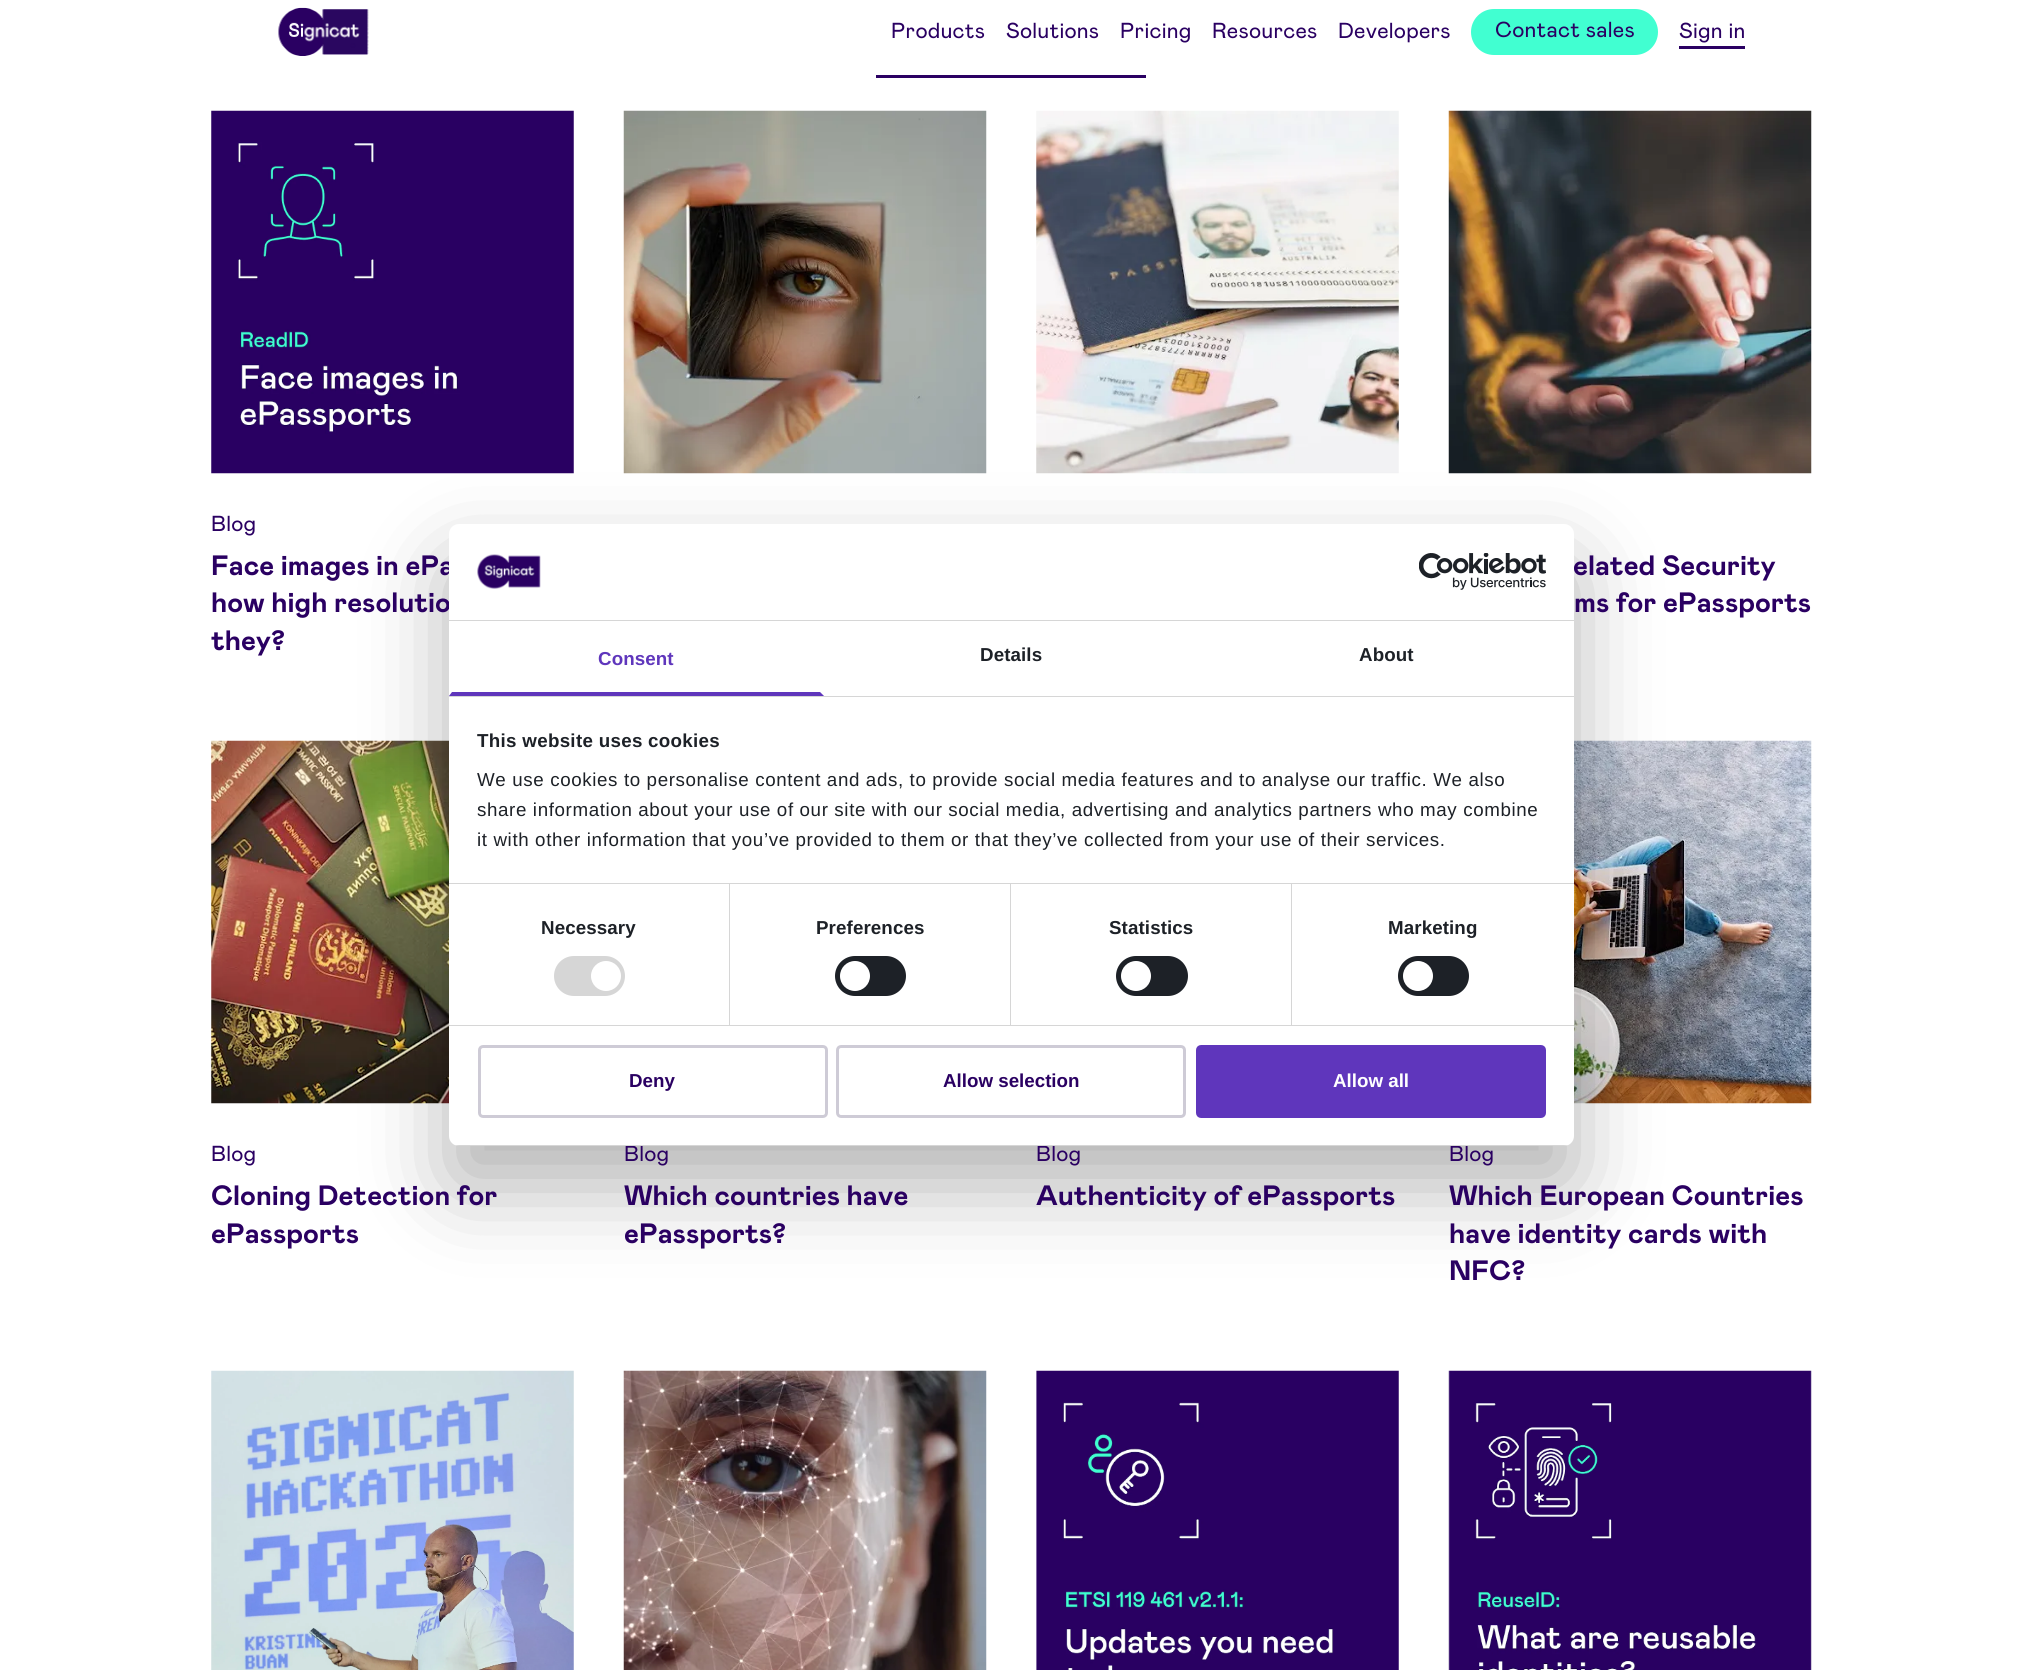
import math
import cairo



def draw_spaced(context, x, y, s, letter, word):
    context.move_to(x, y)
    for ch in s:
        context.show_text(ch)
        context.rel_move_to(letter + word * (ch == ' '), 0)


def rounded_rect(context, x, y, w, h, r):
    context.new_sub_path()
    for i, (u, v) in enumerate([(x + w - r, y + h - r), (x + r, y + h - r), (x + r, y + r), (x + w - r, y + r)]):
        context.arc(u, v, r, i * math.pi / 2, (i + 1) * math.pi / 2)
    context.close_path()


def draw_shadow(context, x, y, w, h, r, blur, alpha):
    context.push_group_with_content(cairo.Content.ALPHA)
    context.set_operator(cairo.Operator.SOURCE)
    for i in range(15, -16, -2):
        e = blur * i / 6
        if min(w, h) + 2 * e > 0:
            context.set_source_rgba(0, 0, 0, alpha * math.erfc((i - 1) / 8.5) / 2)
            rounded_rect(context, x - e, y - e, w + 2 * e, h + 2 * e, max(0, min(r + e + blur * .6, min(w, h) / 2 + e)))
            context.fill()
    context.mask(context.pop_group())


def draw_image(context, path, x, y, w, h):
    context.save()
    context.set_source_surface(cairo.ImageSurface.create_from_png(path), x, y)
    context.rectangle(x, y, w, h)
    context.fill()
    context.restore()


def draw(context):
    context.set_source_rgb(1, 1, 1)
    context.paint()
    draw_image(context, "images/1.png", 278, 7, 91, 49)
    context.set_source_rgb(65 / 255, 1, 209 / 255)
    rounded_rect(context, 1471, 9, 187, 46, 23)
    context.fill()
    context.set_source_rgb(42 / 255, 0, 98 / 255)
    context.rectangle(1679, 46, 66, 3)
    context.fill()
    context.rectangle(876, 75, 270, 3)
    context.fill()
    draw_image(context, "images/2.png", 623, 110, 364, 364)
    draw_image(context, "images/3.png", 1036, 110, 363, 364)
    draw_image(context, "images/4.png", 211, 110, 363, 364)
    draw_image(context, "images/5.png", 1448, 110, 364, 364)
    draw_image(context, "images/6.png", 211, 740, 238, 364)
    draw_image(context, "images/7.png", 1574, 740, 238, 364)
    draw_image(context, "images/8.png", 211, 1370, 363, 300)
    draw_image(context, "images/9.png", 623, 1370, 364, 300)
    draw_image(context, "images/10.png", 1036, 1370, 363, 300)
    draw_image(context, "images/11.png", 1448, 1370, 364, 300)
    context.set_source_rgb(0, 0, 0)
    draw_shadow(context, 449, 564, 1125, 622, 10, 42.5, 0.3)
    context.select_font_face("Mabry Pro")
    context.set_font_size(21.75)
    context.set_source_rgb(42 / 255, 0, 98 / 255)
    draw_spaced(context, 891, 38, "Products", 0.25, 0)
    draw_spaced(context, 1006, 38, "Solutions", 0.25, 0)
    draw_spaced(context, 1120, 38, "Pricing", 0.25, 0)
    draw_spaced(context, 1212, 38, "Resources", 0.25, 0)
    draw_spaced(context, 1338, 38, "Developers", 0.25, 0)
    draw_spaced(context, 1495, 37, "Contact sales", 0.25, 0)
    draw_spaced(context, 1679, 38, "Sign in", 0.25, 0)
    draw_spaced(context, 211, 531, "Blog", 0.25, 0)
    context.select_font_face("Mabry Pro", cairo.FontSlant.NORMAL, cairo.FontWeight.BOLD)
    context.set_font_size(28)
    context.move_to(211, 575)
    context.show_text("Face images in ePa")
    context.move_to(211, 612)
    context.show_text("how high resolutio")
    context.move_to(211, 650)
    context.show_text("they?")
    context.move_to(1573, 575)
    context.show_text("elated Security")
    context.move_to(1574, 612)
    context.show_text("ms for ePassports")
    context.select_font_face("Mabry Pro")
    context.set_font_size(21.75)
    draw_spaced(context, 211, 1161, "Blog", 0.25, 0)
    context.select_font_face("Mabry Pro", cairo.FontSlant.NORMAL, cairo.FontWeight.BOLD)
    context.set_font_size(28)
    context.move_to(211, 1205)
    context.show_text("Cloning Detection for")
    context.move_to(211, 1243)
    context.show_text("ePassports")
    context.select_font_face("Mabry Pro")
    context.set_font_size(21.75)
    draw_spaced(context, 624, 1161, "Blog", 0.25, 0)
    context.select_font_face("Mabry Pro", cairo.FontSlant.NORMAL, cairo.FontWeight.BOLD)
    context.set_font_size(28)
    context.move_to(624, 1205)
    context.show_text("Which countries have")
    context.move_to(624, 1243)
    context.show_text("ePassports?")
    context.select_font_face("Mabry Pro")
    context.set_font_size(21.75)
    draw_spaced(context, 1036, 1161, "Blog", 0.25, 0)
    context.select_font_face("Mabry Pro", cairo.FontSlant.NORMAL, cairo.FontWeight.BOLD)
    context.set_font_size(28)
    context.move_to(1036, 1205)
    context.show_text("Authenticity of ePassports")
    context.select_font_face("Mabry Pro")
    context.set_font_size(21.75)
    draw_spaced(context, 1449, 1161, "Blog", 0.25, 0)
    context.select_font_face("Mabry Pro", cairo.FontSlant.NORMAL, cairo.FontWeight.BOLD)
    context.set_font_size(28)
    context.move_to(1449, 1205)
    context.show_text("Which European Countries")
    context.move_to(1449, 1243)
    context.show_text("have identity cards with")
    context.move_to(1449, 1280)
    context.show_text("NFC?")
    context.set_source_rgb(1, 1, 1)
    rounded_rect(context, 449, 524, 1125, 622, 10)
    context.fill()
    context.set_source_rgb(214 / 255, 214 / 255, 214 / 255)
    context.rectangle(449, 620, 1125, 1)
    context.fill()
    draw_image(context, "images/12.png", 477, 554, 64, 35)
    draw_image(context, "images/13.png", 1419, 553, 127, 37)
    context.rectangle(449, 696, 1125, 1)
    context.fill()
    context.set_source_rgb(95 / 255, 54 / 255, 188 / 255)
    context.new_path()
    context.move_to(824, 696)
    context.line_to(449, 696)
    context.line_to(452, 692)
    context.line_to(820, 692)
    context.close_path()
    context.fill()
    context.select_font_face("Liberation Sans", cairo.FontSlant.NORMAL, cairo.FontWeight.BOLD)
    context.set_font_size(18.75)
    draw_spaced(context, 598, 665, "Consent", 0.1, 0)
    context.set_source_rgb(29 / 255, 33 / 255, 39 / 255)
    draw_spaced(context, 980, 661, "Details", 0.1, 0)
    draw_spaced(context, 1359, 661, "About", 0.1, 0)
    context.set_source_rgb(214 / 255, 214 / 255, 214 / 255)
    context.rectangle(449, 883, 1125, 1)
    context.fill()
    context.set_source_rgb(29 / 255, 33 / 255, 39 / 255)
    draw_spaced(context, 477, 747, "This website uses cookies", 0.3, 0)
    context.select_font_face("Liberation Sans")
    draw_spaced(context, 477, 786, "We use cookies to personalise content and ads, to provide social media features and to analyse our traffic. We also", 0.62, 0)
    draw_spaced(context, 477, 816, "share information about your use of our site with our social media, advertising and analytics partners who may combine", 0.62, 0)
    draw_spaced(context, 477, 846, "it with other information that you’ve provided to them or that they’ve collected from your use of their services.", 0.62, 0)
    context.set_source_rgb(214 / 255, 214 / 255, 214 / 255)
    context.rectangle(449, 1025, 1125, 1)
    context.fill()
    context.rectangle(729, 884, 1, 141)
    context.fill()
    context.select_font_face("Liberation Sans", cairo.FontSlant.NORMAL, cairo.FontWeight.BOLD)
    context.set_source_rgb(29 / 255, 33 / 255, 39 / 255)
    draw_spaced(context, 541, 934, "Necessary", 0.1, 0)
    context.set_source_rgb(214 / 255, 214 / 255, 214 / 255)
    rounded_rect(context, 554, 956, 71, 40, 20)
    context.fill()
    context.set_source_rgb(1, 1, 1)
    context.arc(606, 976, 15, 0, 2 * math.pi)
    context.fill()
    context.set_source_rgb(214 / 255, 214 / 255, 214 / 255)
    context.rectangle(1010, 884, 1, 141)
    context.fill()
    context.set_source_rgb(29 / 255, 33 / 255, 39 / 255)
    draw_spaced(context, 816, 934, "Preferences", 0.1, 0)
    rounded_rect(context, 835, 956, 71, 40, 20)
    context.fill()
    context.set_source_rgb(1, 1, 1)
    context.arc(855, 976, 15, 0, 2 * math.pi)
    context.fill()
    context.set_source_rgb(214 / 255, 214 / 255, 214 / 255)
    context.rectangle(1291, 884, 1, 141)
    context.fill()
    context.set_source_rgb(29 / 255, 33 / 255, 39 / 255)
    draw_spaced(context, 1109, 934, "Statistics", 0.1, 0)
    rounded_rect(context, 1116, 956, 72, 40, 20)
    context.fill()
    context.set_source_rgb(1, 1, 1)
    context.arc(1136, 976, 15, 0, 2 * math.pi)
    context.fill()
    context.set_source_rgb(29 / 255, 33 / 255, 39 / 255)
    draw_spaced(context, 1388, 934, "Marketing", 0.1, 0)
    rounded_rect(context, 1398, 956, 71, 40, 20)
    context.fill()
    context.set_source_rgb(1, 1, 1)
    context.arc(1418, 976, 15, 0, 2 * math.pi)
    context.fill()
    context.save()
    rounded_rect(context, 449, 524, 1125, 622, 10)
    context.clip()
    context.set_source_rgb(214 / 255, 214 / 255, 214 / 255)
    context.rectangle(449, 1145, 1125, 1)
    context.fill()
    context.restore()
    rounded_rect(context, 479.5, 1046.5, 347, 70, 3.5)
    context.set_source_rgb(206 / 255, 203 / 255, 214 / 255)
    context.set_line_width(3)
    context.stroke()
    context.set_source_rgb(42 / 255, 0, 98 / 255)
    context.move_to(629, 1087)
    context.show_text("Deny")
    rounded_rect(context, 837.5, 1046.5, 347, 70, 3.5)
    context.set_source_rgb(206 / 255, 203 / 255, 214 / 255)
    context.stroke()
    context.set_source_rgb(42 / 255, 0, 98 / 255)
    context.move_to(943, 1087)
    context.show_text("Allow selection")
    context.set_source_rgb(95 / 255, 54 / 255, 188 / 255)
    rounded_rect(context, 1197.5, 1046.5, 347, 70, 3.5)
    context.fill_preserve()
    context.stroke()
    context.set_source_rgb(1, 1, 1)
    context.move_to(1333, 1087)
    context.show_text("Allow all")


surface = cairo.ImageSurface(cairo.Format.RGB24, 2022, 1670)
context = cairo.Context(surface)
options = cairo.FontOptions()
options.set_hint_metrics(cairo.HintMetrics.OFF)
options.set_hint_style(cairo.HintStyle.NONE)
context.set_font_options(options)
context.set_miter_limit(4)
draw(context)
surface.write_to_png("out.png")
